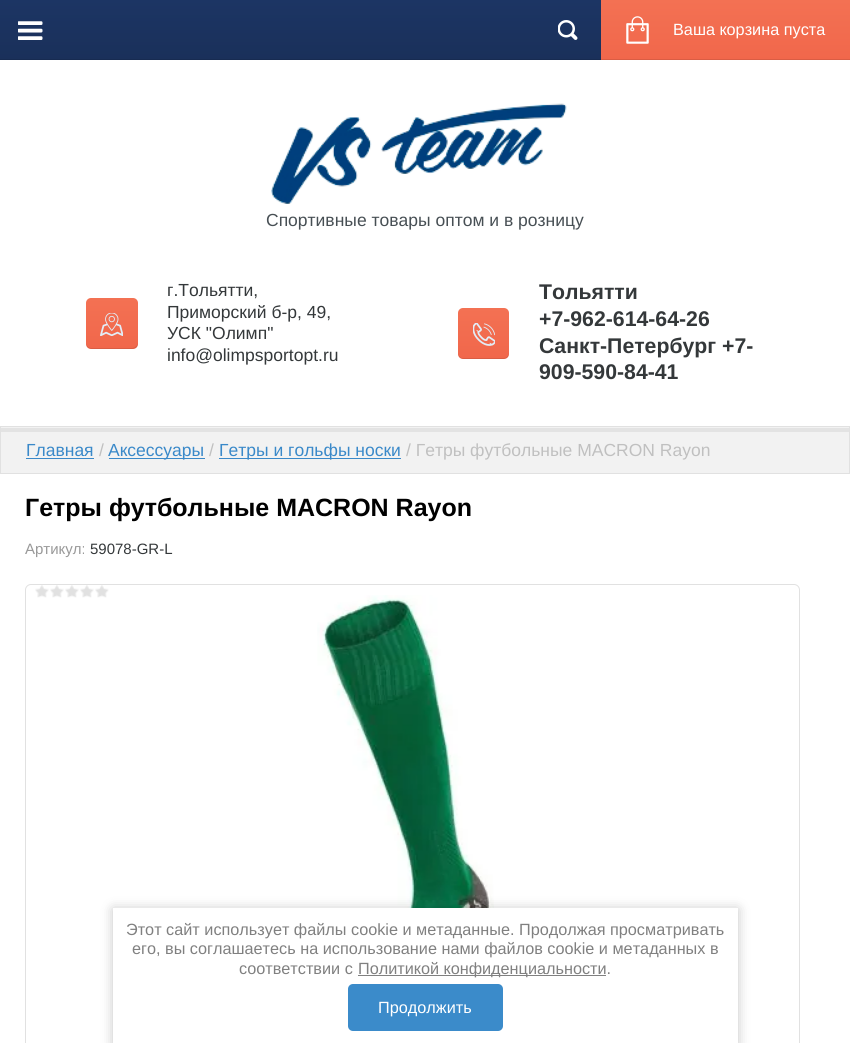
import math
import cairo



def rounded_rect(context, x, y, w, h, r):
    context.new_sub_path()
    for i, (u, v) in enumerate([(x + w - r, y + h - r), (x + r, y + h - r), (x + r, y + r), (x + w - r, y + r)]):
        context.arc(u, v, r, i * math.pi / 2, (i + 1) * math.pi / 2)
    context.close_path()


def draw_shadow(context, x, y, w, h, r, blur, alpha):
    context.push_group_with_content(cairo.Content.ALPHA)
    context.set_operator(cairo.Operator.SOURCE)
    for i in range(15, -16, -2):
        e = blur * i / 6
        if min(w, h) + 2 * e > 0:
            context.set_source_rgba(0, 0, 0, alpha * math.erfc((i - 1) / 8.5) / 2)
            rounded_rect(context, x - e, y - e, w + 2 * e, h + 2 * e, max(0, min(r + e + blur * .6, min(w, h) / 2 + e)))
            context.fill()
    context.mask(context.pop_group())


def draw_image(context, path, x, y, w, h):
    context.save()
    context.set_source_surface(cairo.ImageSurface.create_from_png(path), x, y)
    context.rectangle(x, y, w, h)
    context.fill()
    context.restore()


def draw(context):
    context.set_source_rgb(1, 1, 1)
    context.paint()
    gradient = cairo.LinearGradient(425, 60, 425, 0)
    gradient.add_color_stop_rgba(0, 26 / 255, 48 / 255, 90 / 255, 1)
    gradient.add_color_stop_rgba(1, 28 / 255, 53 / 255, 100 / 255, 1)
    context.set_source(gradient)
    context.rectangle(0, 0, 601, 59)
    context.fill()
    draw_image(context, "images/1.png", 18, 21, 25, 19)
    context.set_source_rgb(23 / 255, 43 / 255, 81 / 255)
    context.rectangle(0, 59, 601, 1)
    context.fill()
    draw_image(context, "images/2.png", 558, 20, 20, 20)
    gradient = cairo.LinearGradient(726, 60, 726, 0)
    gradient.add_color_stop_rgba(0, 241 / 255, 103 / 255, 75 / 255, 1)
    gradient.add_color_stop_rgba(1, 243 / 255, 113 / 255, 83 / 255, 1)
    context.set_source(gradient)
    context.rectangle(601, 0, 249, 59)
    context.fill()
    context.set_source_rgb(217 / 255, 93 / 255, 68 / 255)
    context.rectangle(601, 59, 249, 1)
    context.fill()
    draw_image(context, "images/3.png", 626, 16, 23, 28)
    draw_image(context, "images/4.png", 271, 103, 296, 101)
    gradient = cairo.LinearGradient(112, 349, 112, 298)
    gradient.add_color_stop_rgba(0, 241 / 255, 103 / 255, 75 / 255, 1)
    gradient.add_color_stop_rgba(1, 243 / 255, 113 / 255, 83 / 255, 1)
    context.set_source(gradient)
    rounded_rect(context, 86, 298, 52, 51, 5)
    context.fill()
    context.set_source_rgba(0, 0, 0, 0.1)
    context.new_path()
    context.move_to(86, 342)
    context.curve_to(86, 350, 91, 349, 98, 349)
    context.line_to(126, 349)
    context.curve_to(133, 349, 138, 350, 138, 342)
    context.curve_to(138, 345, 135, 348, 132, 348)
    context.line_to(91, 348)
    context.curve_to(88, 348, 86, 345, 86, 342)
    context.close_path()
    context.fill()
    draw_image(context, "images/5.png", 100, 313, 23, 23)
    gradient = cairo.LinearGradient(483, 359, 483, 308)
    gradient.add_color_stop_rgba(0, 241 / 255, 103 / 255, 75 / 255, 1)
    gradient.add_color_stop_rgba(1, 243 / 255, 113 / 255, 83 / 255, 1)
    context.set_source(gradient)
    rounded_rect(context, 458, 308, 51, 51, 5)
    context.fill()
    context.set_source_rgba(0, 0, 0, 0.1)
    context.new_path()
    context.move_to(458, 352)
    context.curve_to(458, 360, 463, 359, 470, 359)
    context.line_to(497, 359)
    context.curve_to(504, 359, 509, 360, 509, 352)
    context.curve_to(509, 355, 507, 358, 504, 358)
    context.line_to(462, 358)
    context.curve_to(460, 358, 458, 355, 458, 352)
    context.close_path()
    context.fill()
    draw_image(context, "images/6.png", 473, 323, 22, 23)
    context.set_source_rgb(242 / 255, 242 / 255, 242 / 255)
    context.rectangle(1, 427, 848, 46)
    context.fill()
    context.set_source_rgb(227 / 255, 227 / 255, 227 / 255)
    context.rectangle(1, 428, 848, 4)
    context.fill()
    context.rectangle(0.5, 426.5, 849, 47)
    context.set_source_rgb(225 / 255, 225 / 255, 225 / 255)
    context.set_line_width(1)
    context.stroke()
    context.set_source_rgb(58 / 255, 137 / 255, 201 / 255)
    context.rectangle(26, 458, 68, 1)
    context.fill()
    context.rectangle(109, 458, 96, 1)
    context.fill()
    context.rectangle(219, 458, 182, 1)
    context.fill()
    rounded_rect(context, 25.5, 584.5, 774, 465, 5.5)
    context.set_source_rgb(225 / 255, 225 / 255, 225 / 255)
    context.stroke()
    draw_image(context, "images/7.png", 35, 585, 74, 13)
    draw_image(context, "images/8.png", 317, 595, 177, 313)
    context.set_source_rgb(0, 0, 0)
    draw_shadow(context, 113, 909, 625, 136, 0, 6, 0.23)
    context.set_source_rgb(1, 1, 1)
    context.rectangle(113, 908, 625, 135)
    context.fill()
    context.set_source_rgb(128 / 255, 128 / 255, 128 / 255)
    context.rectangle(358, 975, 248, 1)
    context.fill()
    context.set_source_rgb(59 / 255, 139 / 255, 202 / 255)
    rounded_rect(context, 348, 984, 155, 47, 5)
    context.fill()
    context.select_font_face("Liberation Sans")
    context.set_font_size(16.25)
    context.set_source_rgb(1, 1, 1)
    context.move_to(673, 35)
    context.show_text("Ваша корзина пуста")
    context.set_font_size(17.5)
    context.set_source_rgb(71 / 255, 79 / 255, 84 / 255)
    context.move_to(266, 226)
    context.show_text("Спортивные товары оптом и в розницу")
    context.set_source_rgb(52 / 255, 56 / 255, 58 / 255)
    context.move_to(167, 296)
    context.show_text("г.Тольятти,")
    context.move_to(167, 318)
    context.show_text("Приморский б-р, 49,")
    context.move_to(167, 339)
    context.show_text("УСК \"Олимп\"")
    context.move_to(167, 361)
    context.show_text("info@olimpsportopt.ru")
    context.select_font_face("Liberation Sans", cairo.FontSlant.NORMAL, cairo.FontWeight.BOLD)
    context.set_font_size(21.25)
    context.move_to(539, 299)
    context.show_text("Тольятти")
    context.move_to(539, 326)
    context.show_text("+7-962-614-64-26")
    context.move_to(539, 353)
    context.show_text("Санкт-Петербург +7-")
    context.move_to(539, 379)
    context.show_text("909-590-84-41")
    context.select_font_face("Liberation Sans")
    context.set_font_size(17.5)
    context.set_source_rgb(58 / 255, 137 / 255, 201 / 255)
    context.move_to(26, 456)
    context.show_text("Главная")
    context.set_source_rgb(192 / 255, 192 / 255, 192 / 255)
    context.move_to(99, 456)
    context.show_text("/")
    context.set_source_rgb(58 / 255, 137 / 255, 201 / 255)
    context.move_to(108, 456)
    context.show_text("Аксессуары")
    context.set_source_rgb(192 / 255, 192 / 255, 192 / 255)
    context.move_to(209, 456)
    context.show_text("/")
    context.set_source_rgb(58 / 255, 137 / 255, 201 / 255)
    context.move_to(219, 456)
    context.show_text("Гетры и гольфы носки")
    context.set_source_rgb(192 / 255, 192 / 255, 192 / 255)
    context.move_to(406, 456)
    context.show_text("/ Гетры футбольные MACRON Rayon")
    context.select_font_face("Liberation Sans", cairo.FontSlant.NORMAL, cairo.FontWeight.BOLD)
    context.set_font_size(25)
    context.set_source_rgb(0, 0, 0)
    context.move_to(25, 516)
    context.show_text("Гетры футбольные MACRON Rayon")
    context.select_font_face("Liberation Sans")
    context.set_font_size(15)
    context.set_source_rgb(153 / 255, 153 / 255, 153 / 255)
    context.move_to(25, 554)
    context.show_text("Артикул:")
    context.set_source_rgb(52 / 255, 56 / 255, 58 / 255)
    context.move_to(90, 554)
    context.show_text("59078-GR-L")
    context.set_font_size(16.25)
    context.set_source_rgb(128 / 255, 128 / 255, 128 / 255)
    context.move_to(126, 935)
    context.show_text("Этот сайт использует файлы cookie и метаданные. Продолжая просматривать")
    context.move_to(132, 954)
    context.show_text("его, вы соглашаетесь на использование нами файлов cookie и метаданных в")
    context.move_to(239, 974)
    context.show_text("соответствии с")
    context.move_to(358, 974)
    context.show_text("Политикой конфиденциальности.")
    context.set_source_rgb(1, 1, 1)
    context.move_to(378, 1013)
    context.show_text("Продолжить")


surface = cairo.ImageSurface(cairo.Format.RGB24, 850, 1043)
context = cairo.Context(surface)
options = cairo.FontOptions()
options.set_hint_metrics(cairo.HintMetrics.OFF)
options.set_hint_style(cairo.HintStyle.NONE)
context.set_font_options(options)
context.set_miter_limit(4)
draw(context)
surface.write_to_png("out.png")
